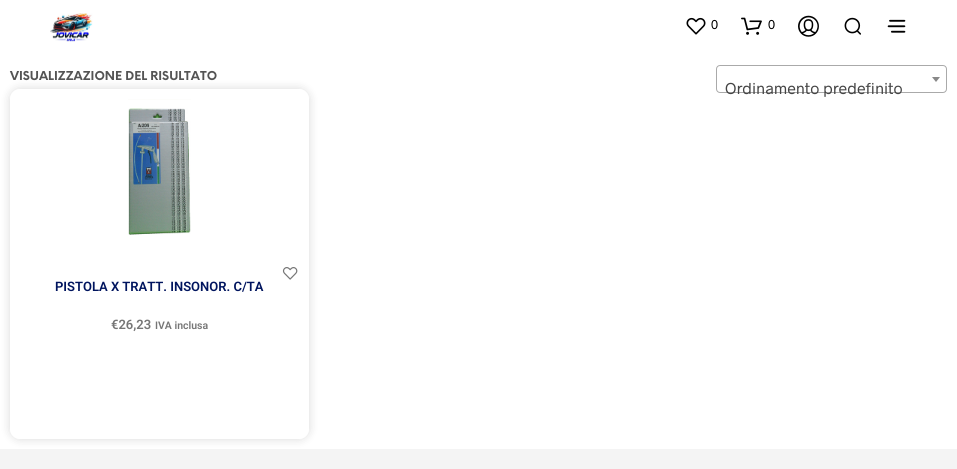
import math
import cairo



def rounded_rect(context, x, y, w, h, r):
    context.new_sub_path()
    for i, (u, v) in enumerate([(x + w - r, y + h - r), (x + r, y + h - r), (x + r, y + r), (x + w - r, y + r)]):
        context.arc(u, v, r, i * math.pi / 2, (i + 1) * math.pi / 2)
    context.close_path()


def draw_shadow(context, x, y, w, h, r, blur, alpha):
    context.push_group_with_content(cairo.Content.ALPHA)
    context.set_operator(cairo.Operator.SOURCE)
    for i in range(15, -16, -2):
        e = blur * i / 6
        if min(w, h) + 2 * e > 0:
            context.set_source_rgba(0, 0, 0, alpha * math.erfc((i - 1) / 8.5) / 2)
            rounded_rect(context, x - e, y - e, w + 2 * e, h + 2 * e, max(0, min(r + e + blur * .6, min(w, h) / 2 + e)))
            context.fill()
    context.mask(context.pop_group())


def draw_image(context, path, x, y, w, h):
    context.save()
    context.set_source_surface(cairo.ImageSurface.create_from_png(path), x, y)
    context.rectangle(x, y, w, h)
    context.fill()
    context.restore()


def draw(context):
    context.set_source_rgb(1, 1, 1)
    context.paint()
    draw_image(context, "images/1.png", 50, 13, 43, 29)
    draw_image(context, "images/2.png", 686, 17, 20, 18)
    draw_image(context, "images/3.png", 741, 17, 21, 18)
    draw_image(context, "images/4.png", 798, 15, 21, 22)
    draw_image(context, "images/5.png", 844, 17, 17, 18)
    draw_image(context, "images/6.png", 887, 19, 19, 14)
    rounded_rect(context, 716.5, 65.5, 230, 27, 3.5)
    context.set_source_rgb(170 / 255, 170 / 255, 170 / 255)
    context.set_line_width(1)
    context.stroke()
    context.set_source_rgb(136 / 255, 136 / 255, 136 / 255)
    context.new_path()
    context.move_to(932, 77)
    context.line_to(940, 77)
    context.line_to(936, 82)
    context.close_path()
    context.fill()
    context.set_source_rgb(244 / 255, 244 / 255, 244 / 255)
    context.rectangle(0, 449, 957, 20)
    context.fill()
    context.save()
    context.set_fill_rule(cairo.FillRule.EVEN_ODD)
    context.new_path()
    context.move_to(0, 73)
    context.line_to(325, 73)
    context.line_to(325, 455)
    context.line_to(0, 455)
    context.close_path()
    context.move_to(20, 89)
    context.line_to(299, 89)
    context.curve_to(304.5, 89, 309, 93.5, 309, 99)
    context.line_to(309, 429)
    context.curve_to(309, 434.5, 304.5, 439, 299, 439)
    context.line_to(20, 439)
    context.curve_to(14.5, 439, 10, 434.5, 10, 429)
    context.line_to(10, 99)
    context.curve_to(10, 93.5, 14.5, 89, 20, 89)
    context.close_path()
    context.clip()
    context.set_source_rgb(0, 0, 0)
    draw_shadow(context, 10, 89, 299, 350, 10, 5, 0.15)
    context.restore()
    draw_image(context, "images/7.png", 128, 99, 63, 136)
    draw_image(context, "images/8.png", 282, 267, 16, 13)
    context.select_font_face("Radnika")
    context.set_font_size(13)
    context.set_source_rgb(0, 0, 0)
    context.move_to(711, 29)
    context.show_text("0")
    context.move_to(768, 29)
    context.show_text("0")
    context.select_font_face("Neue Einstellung", cairo.FontSlant.NORMAL, cairo.FontWeight.BOLD)
    context.set_font_size(12)
    context.set_source_rgb(84 / 255, 84 / 255, 84 / 255)
    context.move_to(10, 80)
    context.show_text("VISUALIZZAZIONE DEL RISULTATO")
    context.select_font_face("Radnika")
    context.set_font_size(16)
    context.set_source_rgb(68 / 255, 68 / 255, 68 / 255)
    context.move_to(725, 94)
    context.show_text("Ordinamento predefinito")
    context.select_font_face("Roboto SemiBold")
    context.set_font_size(13)
    context.set_source_rgb(0, 20 / 255, 94 / 255)
    context.move_to(55, 291)
    context.show_text("PISTOLA X TRATT. INSONOR. C/TA")
    context.set_source_rgb(118 / 255, 118 / 255, 118 / 255)
    context.move_to(111, 329)
    context.show_text("€26,23")
    context.set_font_size(10.5)
    context.move_to(155, 329)
    context.show_text("IVA inclusa")


surface = cairo.ImageSurface(cairo.Format.RGB24, 957, 469)
context = cairo.Context(surface)
options = cairo.FontOptions()
options.set_hint_metrics(cairo.HintMetrics.OFF)
options.set_hint_style(cairo.HintStyle.NONE)
context.set_font_options(options)
context.set_miter_limit(4)
draw(context)
surface.write_to_png("out.png")
